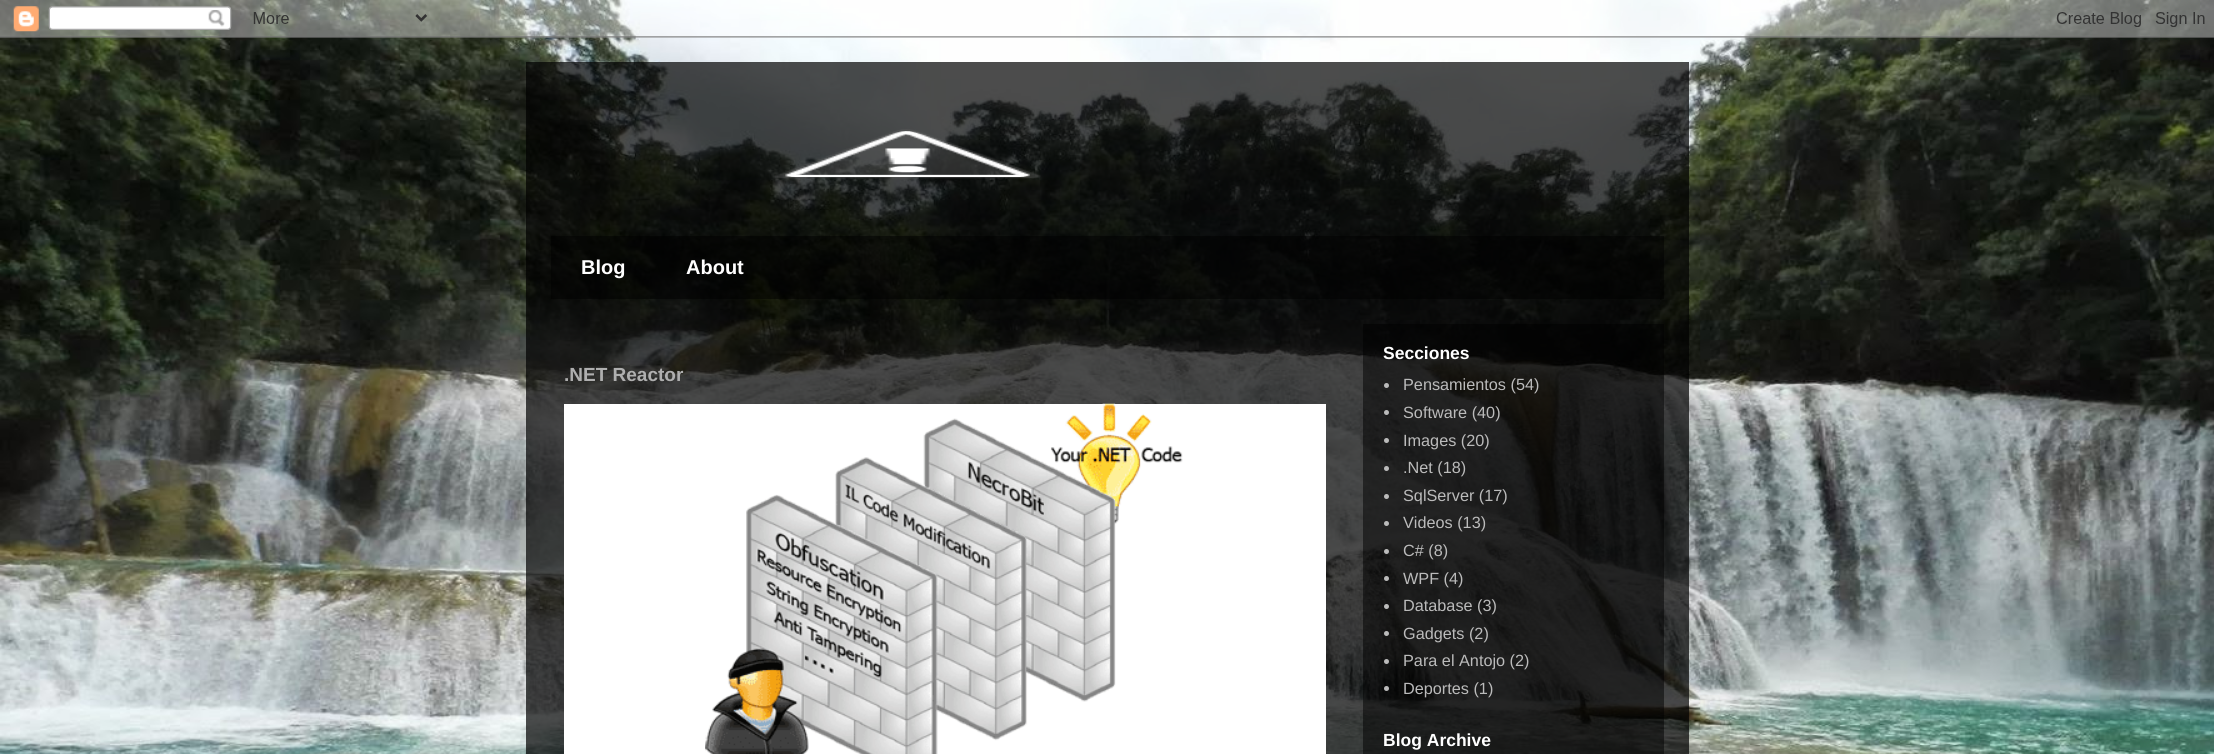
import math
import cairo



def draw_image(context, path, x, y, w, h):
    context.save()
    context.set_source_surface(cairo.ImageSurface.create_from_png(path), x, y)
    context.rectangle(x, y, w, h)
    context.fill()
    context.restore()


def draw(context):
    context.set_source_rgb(1, 1, 1)
    context.paint()
    draw_image(context, "images/1.png", 0, 0, 2214, 754)
    draw_image(context, "images/2.png", 0, 0, 2214, 38)
    context.set_source_rgba(0, 0, 0, 0.7)
    context.rectangle(526, 62, 1163, 692)
    context.fill()
    draw_image(context, "images/3.png", 775, 129, 266, 50)
    context.set_source_rgba(0, 0, 0, 0.5)
    context.rectangle(551, 236, 1113, 63)
    context.fill()
    context.rectangle(1363, 324, 301, 430)
    context.fill()
    context.set_source_rgb(1, 1, 1)
    context.rectangle(564, 404, 762, 350)
    context.fill()
    draw_image(context, "images/4.png", 705, 403, 478, 351)
    context.set_source_rgb(187 / 255, 187 / 255, 187 / 255)
    context.arc(1386.5, 385.5, 2.5, 0, 2 * math.pi)
    context.fill()
    context.arc(1386.5, 412.5, 2.5, 0, 2 * math.pi)
    context.fill()
    context.arc(1386.5, 440.5, 2.5, 0, 2 * math.pi)
    context.fill()
    context.arc(1386.5, 468.5, 2.5, 0, 2 * math.pi)
    context.fill()
    context.arc(1386.5, 496.5, 2.5, 0, 2 * math.pi)
    context.fill()
    context.arc(1386.5, 523.5, 2.5, 0, 2 * math.pi)
    context.fill()
    context.arc(1386.5, 551.5, 2.5, 0, 2 * math.pi)
    context.fill()
    context.arc(1386.5, 578.5, 2.5, 0, 2 * math.pi)
    context.fill()
    context.arc(1386.5, 606.5, 2.5, 0, 2 * math.pi)
    context.fill()
    context.arc(1386.5, 633.5, 2.5, 0, 2 * math.pi)
    context.fill()
    context.arc(1386.5, 661.5, 2.5, 0, 2 * math.pi)
    context.fill()
    context.arc(1386.5, 688.5, 2.5, 0, 2 * math.pi)
    context.fill()
    context.select_font_face("Liberation Sans", cairo.FontSlant.NORMAL, cairo.FontWeight.BOLD)
    context.set_font_size(20)
    context.set_source_rgb(1, 1, 1)
    context.move_to(581, 274)
    context.show_text("Blog")
    context.move_to(686, 274)
    context.show_text("About")
    context.set_font_size(19)
    context.set_source_rgb(175 / 255, 175 / 255, 175 / 255)
    context.move_to(564, 381)
    context.show_text(".NET Reactor")
    context.set_font_size(17.5)
    context.set_source_rgb(1, 1, 1)
    context.move_to(1383, 359)
    context.show_text("Secciones")
    context.select_font_face("Liberation Sans")
    context.set_font_size(16.25)
    context.set_source_rgb(187 / 255, 187 / 255, 187 / 255)
    context.move_to(1403, 390)
    context.show_text("Pensamientos (54)")
    context.move_to(1403, 418)
    context.show_text("Software (40)")
    context.move_to(1403, 446)
    context.show_text("Images (20)")
    context.move_to(1403, 473)
    context.show_text(".Net (18)")
    context.move_to(1403, 501)
    context.show_text("SqlServer (17)")
    context.move_to(1403, 528)
    context.show_text("Videos (13)")
    context.move_to(1403, 556)
    context.show_text("C# (8)")
    context.move_to(1403, 584)
    context.show_text("WPF (4)")
    context.move_to(1403, 611)
    context.show_text("Database (3)")
    context.move_to(1403, 639)
    context.show_text("Gadgets (2)")
    context.move_to(1403, 666)
    context.show_text("Para el Antojo (2)")
    context.move_to(1403, 694)
    context.show_text("Deportes (1)")
    context.select_font_face("Liberation Sans", cairo.FontSlant.NORMAL, cairo.FontWeight.BOLD)
    context.set_font_size(17.5)
    context.set_source_rgb(1, 1, 1)
    context.move_to(1383, 746)
    context.show_text("Blog Archive")


surface = cairo.ImageSurface(cairo.Format.RGB24, 2214, 754)
context = cairo.Context(surface)
options = cairo.FontOptions()
options.set_hint_metrics(cairo.HintMetrics.OFF)
options.set_hint_style(cairo.HintStyle.NONE)
context.set_font_options(options)
context.set_miter_limit(4)
draw(context)
surface.write_to_png("out.png")
